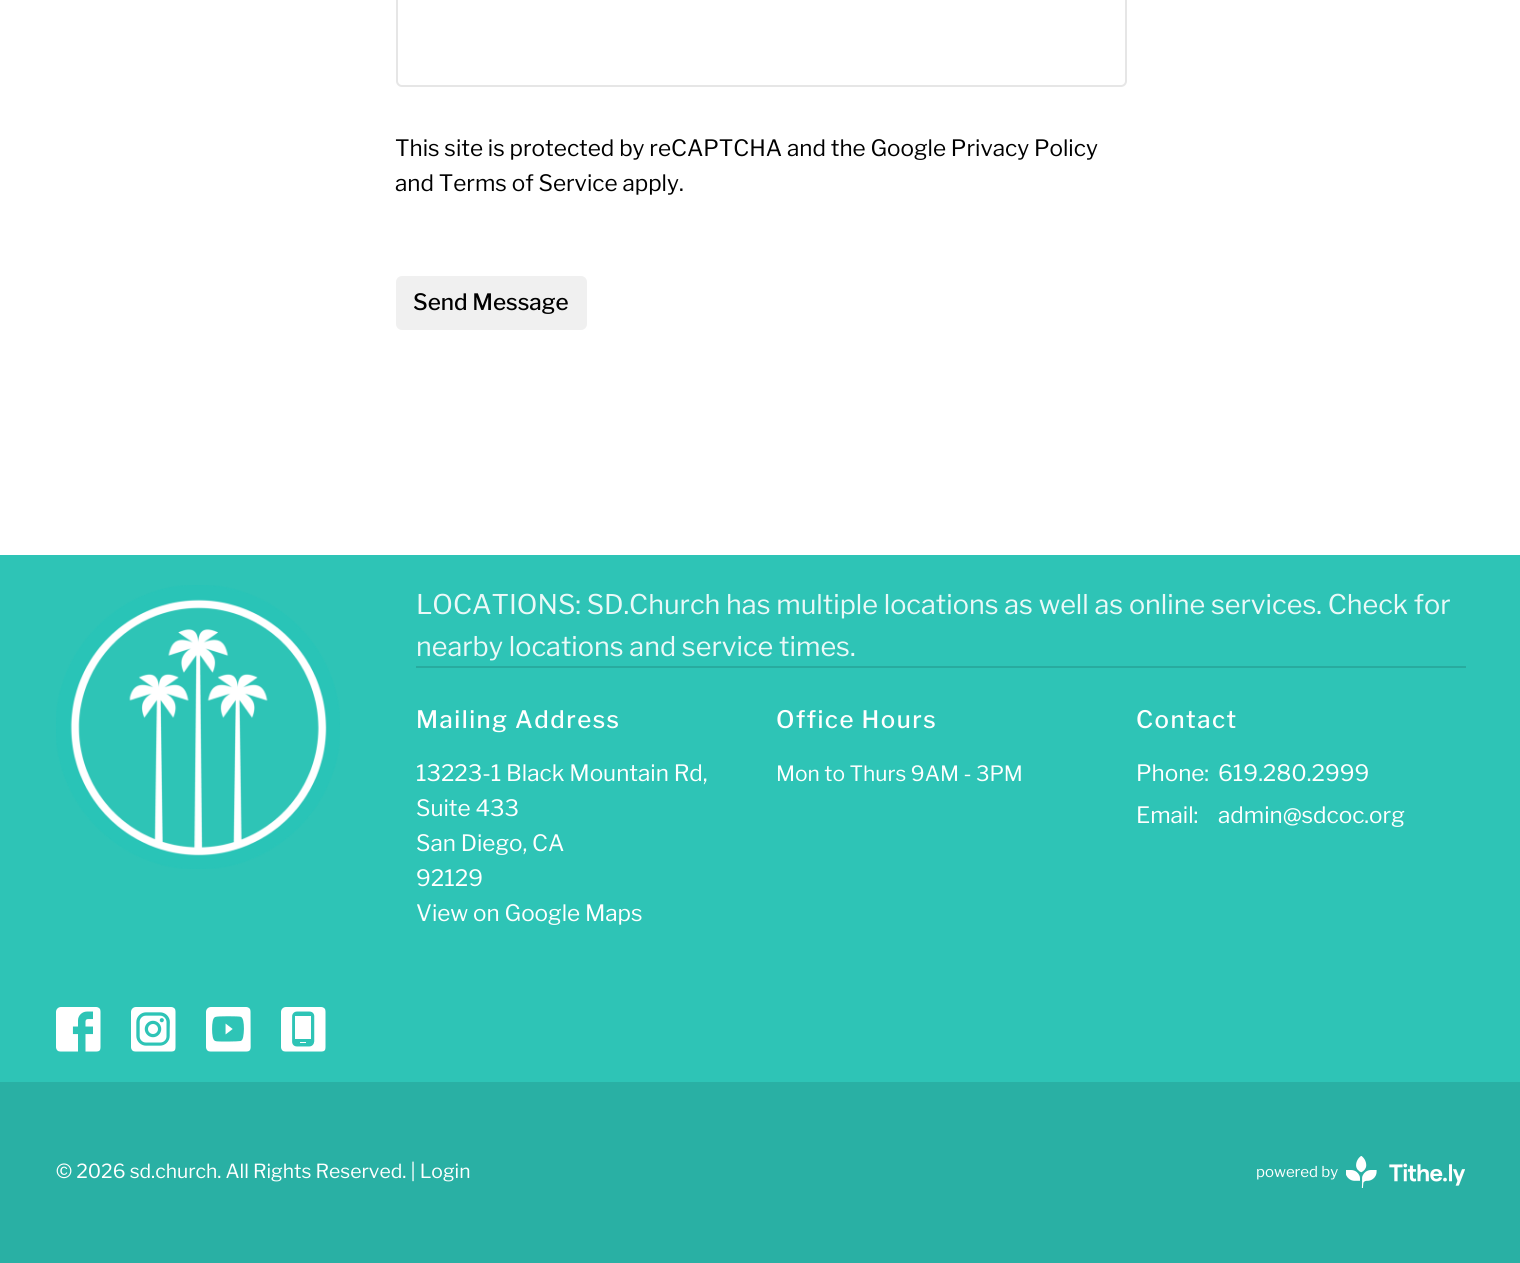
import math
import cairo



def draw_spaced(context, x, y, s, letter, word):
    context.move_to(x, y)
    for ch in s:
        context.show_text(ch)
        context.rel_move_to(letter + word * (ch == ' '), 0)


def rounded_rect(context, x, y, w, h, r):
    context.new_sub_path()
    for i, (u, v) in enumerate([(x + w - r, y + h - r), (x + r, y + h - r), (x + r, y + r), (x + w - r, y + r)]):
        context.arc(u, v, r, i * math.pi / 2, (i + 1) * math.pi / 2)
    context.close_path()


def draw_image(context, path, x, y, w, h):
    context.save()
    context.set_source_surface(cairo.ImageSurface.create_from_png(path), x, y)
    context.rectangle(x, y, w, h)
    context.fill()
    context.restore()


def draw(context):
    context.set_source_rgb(1, 1, 1)
    context.paint()
    rounded_rect(context, 397, -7, 729, 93, 5)
    context.set_source_rgb(230 / 255, 230 / 255, 230 / 255)
    context.stroke()
    context.set_source_rgb(240 / 255, 240 / 255, 240 / 255)
    rounded_rect(context, 396, 276, 191, 54, 6)
    context.fill()
    context.set_source_rgb(46 / 255, 196 / 255, 182 / 255)
    context.rectangle(0, 555, 1520, 527)
    context.fill()
    draw_image(context, "images/1.png", 56, 585, 284, 284)
    context.set_source_rgb(40 / 255, 171 / 255, 159 / 255)
    context.rectangle(416, 666, 1050, 2)
    context.fill()
    draw_image(context, "images/2.png", 56, 1007, 45, 45)
    draw_image(context, "images/3.png", 131, 1007, 45, 45)
    draw_image(context, "images/4.png", 206, 1007, 45, 45)
    draw_image(context, "images/5.png", 281, 1007, 45, 45)
    context.set_source_rgb(41 / 255, 176 / 255, 164 / 255)
    context.rectangle(0, 1082, 1520, 181)
    context.fill()
    draw_image(context, "images/6.png", 1346, 1156, 119, 32)
    context.select_font_face("Libre Franklin")
    context.set_font_size(22.5)
    context.set_source_rgb(0, 0, 0)
    context.move_to(395, 156)
    context.show_text("This site is protected by reCAPTCHA and the Google Privacy Policy")
    context.move_to(395, 191)
    context.show_text("and Terms of Service apply.")
    context.select_font_face("Libre Franklin Medium")
    context.move_to(413, 310)
    context.show_text("Send Message")
    context.select_font_face("Libre Franklin")
    context.set_font_size(27)
    context.set_source_rgb(234 / 255, 249 / 255, 248 / 255)
    context.move_to(416, 614)
    context.show_text("LOCATIONS: SD.Church has multiple locations as well as online services. Check for")
    context.move_to(416, 656)
    context.show_text("nearby locations and service times.")
    context.select_font_face("Libre Franklin Medium")
    context.set_font_size(24)
    context.set_source_rgb(1, 1, 1)
    draw_spaced(context, 416, 728, "Mailing Address", 1.5, 0)
    context.select_font_face("Libre Franklin")
    context.set_font_size(22.5)
    context.move_to(416, 781)
    context.show_text("13223-1 Black Mountain Rd,")
    context.move_to(416, 816)
    context.show_text("Suite 433")
    context.move_to(416, 851)
    context.show_text("San Diego, CA")
    context.move_to(416, 886)
    context.show_text("92129")
    context.move_to(416, 921)
    context.show_text("View on Google Maps")
    context.select_font_face("Libre Franklin Medium")
    context.set_font_size(24)
    draw_spaced(context, 776, 728, "Office Hours", 1.5, 0)
    context.select_font_face("Libre Franklin")
    context.set_font_size(21)
    context.move_to(776, 781)
    context.show_text("Mon to Thurs 9AM - 3PM")
    context.select_font_face("Libre Franklin Medium")
    context.set_font_size(24)
    draw_spaced(context, 1136, 728, "Contact", 1.5, 0)
    context.select_font_face("Libre Franklin")
    context.set_font_size(22.5)
    context.move_to(1136, 781)
    context.show_text("Phone:")
    context.move_to(1218, 781)
    context.show_text("619.280.2999")
    context.move_to(1136, 823)
    context.show_text("Email:")
    context.move_to(1218, 823)
    context.show_text("admin@sdcoc.org")
    context.set_font_size(19.35)
    context.move_to(56, 1178)
    context.show_text("© 2026 sd.church. All Rights Reserved. | Login")
    context.set_font_size(15)
    context.move_to(1256, 1177)
    context.show_text("powered by")


surface = cairo.ImageSurface(cairo.Format.RGB24, 1520, 1263)
context = cairo.Context(surface)
options = cairo.FontOptions()
options.set_hint_metrics(cairo.HintMetrics.OFF)
options.set_hint_style(cairo.HintStyle.NONE)
context.set_font_options(options)
context.set_miter_limit(4)
draw(context)
surface.write_to_png("out.png")
